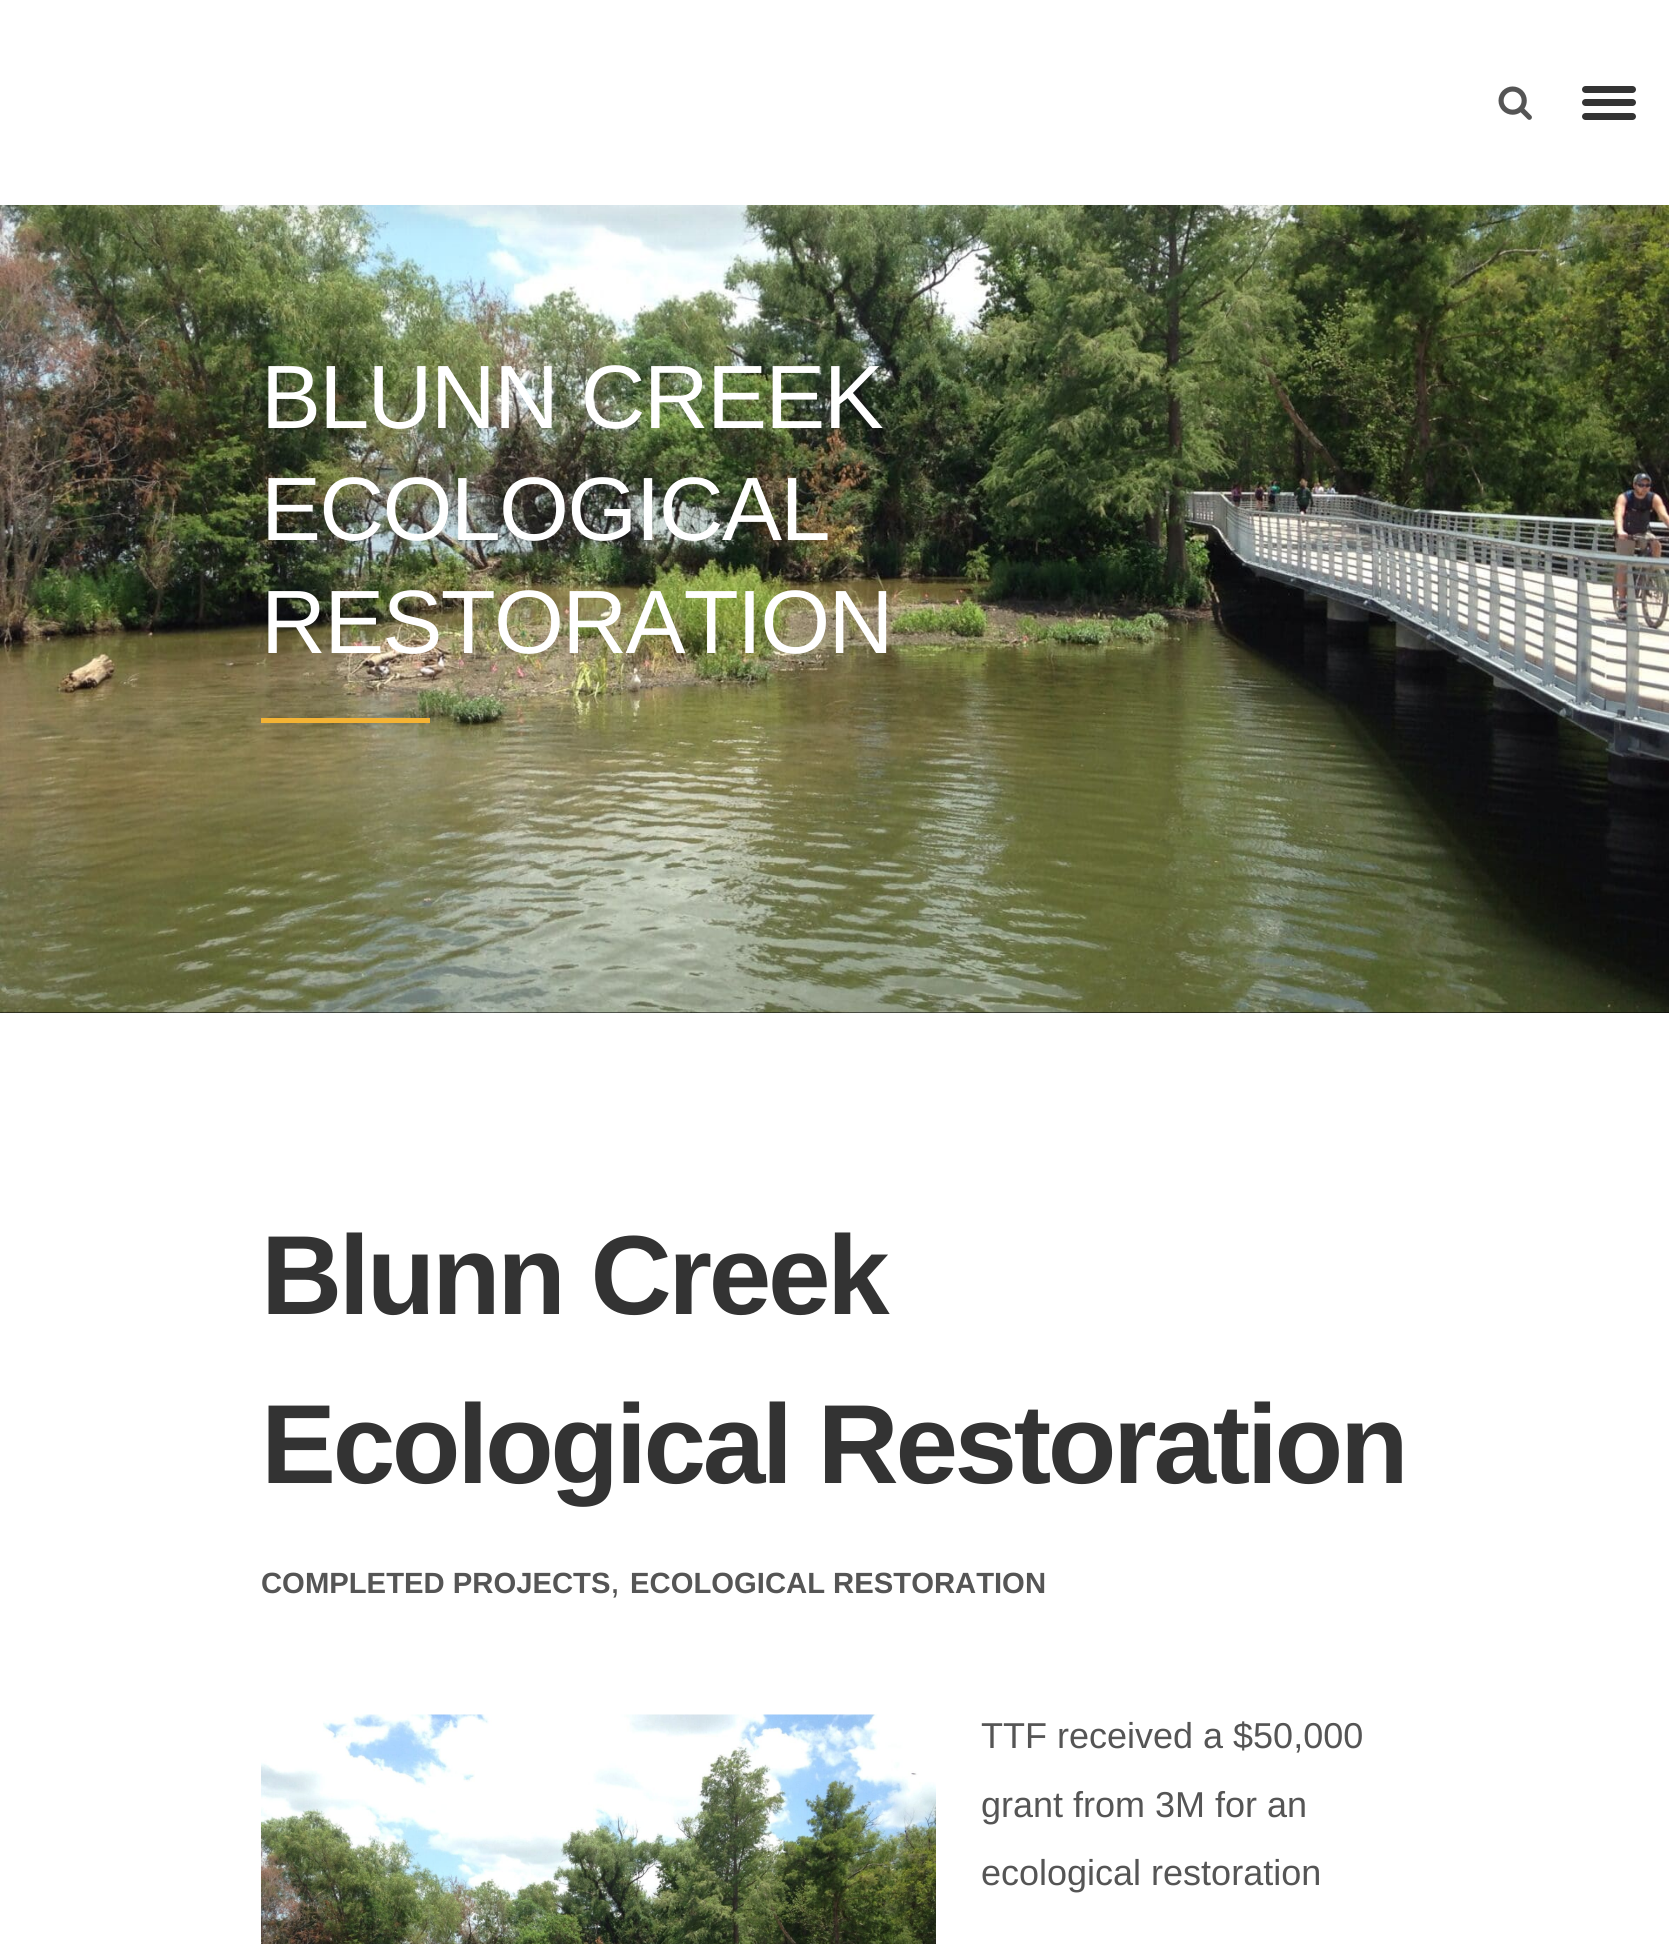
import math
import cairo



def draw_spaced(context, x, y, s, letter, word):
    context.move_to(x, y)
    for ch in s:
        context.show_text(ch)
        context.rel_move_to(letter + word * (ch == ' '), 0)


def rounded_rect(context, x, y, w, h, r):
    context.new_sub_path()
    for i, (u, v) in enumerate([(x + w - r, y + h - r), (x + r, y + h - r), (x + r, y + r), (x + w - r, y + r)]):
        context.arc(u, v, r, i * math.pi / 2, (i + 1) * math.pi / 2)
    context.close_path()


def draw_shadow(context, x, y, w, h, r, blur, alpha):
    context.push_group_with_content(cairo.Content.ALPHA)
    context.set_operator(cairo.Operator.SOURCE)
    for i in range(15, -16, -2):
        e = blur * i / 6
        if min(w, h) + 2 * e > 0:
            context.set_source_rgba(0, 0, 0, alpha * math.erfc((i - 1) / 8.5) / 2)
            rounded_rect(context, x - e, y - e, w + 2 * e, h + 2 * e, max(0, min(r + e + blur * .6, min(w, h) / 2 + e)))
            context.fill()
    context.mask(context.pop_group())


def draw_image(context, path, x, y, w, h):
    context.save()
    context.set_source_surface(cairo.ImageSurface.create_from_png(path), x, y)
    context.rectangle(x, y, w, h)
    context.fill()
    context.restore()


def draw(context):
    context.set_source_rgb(1, 1, 1)
    context.paint()
    context.set_source_rgb(0, 0, 0)
    context.rectangle(0, 1012, 1669, 1)
    context.fill()
    draw_image(context, "images/2.png", 0, 205, 1669, 808)
    context.set_source_rgb(0, 0, 0)
    draw_shadow(context, -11, -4, 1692, 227, 0, 11, 0.06)
    context.set_source_rgb(1, 1, 1)
    context.rectangle(0, 0, 1669, 205)
    context.fill()
    draw_image(context, "images/1.png", 1498, 86, 34, 34)
    context.set_source_rgb(51 / 255, 51 / 255, 51 / 255)
    rounded_rect(context, 1582, 99, 54, 7, 3.5)
    context.fill()
    rounded_rect(context, 1582, 86, 54, 7, 3.5)
    context.fill()
    rounded_rect(context, 1582, 113, 54, 7, 3.5)
    context.fill()
    context.set_source_rgb(244 / 255, 179 / 255, 52 / 255)
    context.rectangle(261, 718, 169, 5)
    context.fill()
    draw_image(context, "images/3.png", 261, 1714, 675, 230)
    context.select_font_face("Liberation Sans")
    context.set_font_size(90)
    context.set_source_rgb(1, 1, 1)
    draw_spaced(context, 261, 428, "BLUNN CREEK", -1.75, 0)
    draw_spaced(context, 261, 540, "ECOLOGICAL", -1.75, 0)
    draw_spaced(context, 261, 653, "RESTORATION", -1.75, 0)
    context.select_font_face("Liberation Sans", cairo.FontSlant.NORMAL, cairo.FontWeight.BOLD)
    context.set_font_size(112.5)
    context.set_source_rgb(51 / 255, 51 / 255, 51 / 255)
    draw_spaced(context, 261, 1314, "Blunn Creek", -3.4, 0)
    draw_spaced(context, 261, 1483, "Ecological Restoration", -3.4, 0)
    context.set_font_size(29.25)
    context.set_source_rgb(85 / 255, 85 / 255, 85 / 255)
    context.move_to(261, 1593)
    context.show_text("COMPLETED PROJECTS")
    context.select_font_face("Liberation Sans")
    context.set_font_size(36)
    context.move_to(610, 1593)
    context.show_text(",")
    context.select_font_face("Liberation Sans", cairo.FontSlant.NORMAL, cairo.FontWeight.BOLD)
    context.set_font_size(29.25)
    context.move_to(630, 1593)
    context.show_text("ECOLOGICAL RESTORATION")
    context.select_font_face("Liberation Sans")
    context.set_font_size(36)
    context.move_to(981, 1748)
    context.show_text("TTF received a $50,000")
    context.move_to(981, 1817)
    context.show_text("grant from 3M for an")
    context.move_to(981, 1885)
    context.show_text("ecological restoration")


surface = cairo.ImageSurface(cairo.Format.RGB24, 1669, 1944)
context = cairo.Context(surface)
options = cairo.FontOptions()
options.set_hint_metrics(cairo.HintMetrics.OFF)
options.set_hint_style(cairo.HintStyle.NONE)
context.set_font_options(options)
context.set_miter_limit(4)
draw(context)
surface.write_to_png("out.png")
